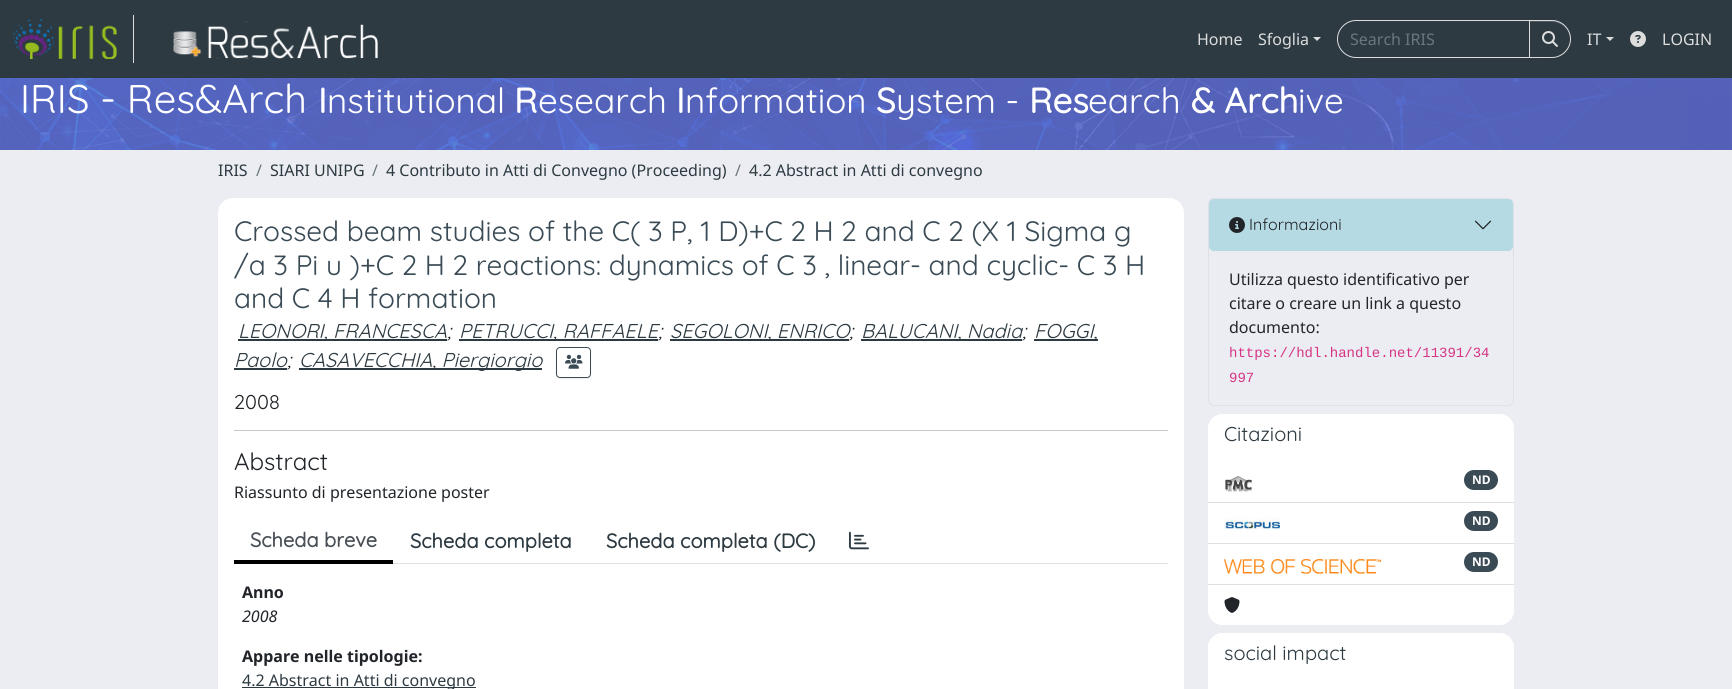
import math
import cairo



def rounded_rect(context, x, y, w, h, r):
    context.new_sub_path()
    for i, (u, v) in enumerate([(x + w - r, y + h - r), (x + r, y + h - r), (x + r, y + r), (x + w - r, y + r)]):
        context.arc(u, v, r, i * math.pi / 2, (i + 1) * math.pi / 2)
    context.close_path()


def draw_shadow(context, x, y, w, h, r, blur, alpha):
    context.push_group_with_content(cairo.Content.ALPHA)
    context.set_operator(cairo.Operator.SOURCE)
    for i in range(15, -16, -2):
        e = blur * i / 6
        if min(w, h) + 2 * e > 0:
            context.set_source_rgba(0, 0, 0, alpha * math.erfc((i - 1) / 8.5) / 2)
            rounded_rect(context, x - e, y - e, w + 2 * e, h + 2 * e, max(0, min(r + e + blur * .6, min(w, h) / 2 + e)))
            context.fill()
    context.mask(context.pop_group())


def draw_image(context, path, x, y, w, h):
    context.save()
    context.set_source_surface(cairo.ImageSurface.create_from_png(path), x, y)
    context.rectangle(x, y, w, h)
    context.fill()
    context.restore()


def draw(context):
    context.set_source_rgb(236 / 255, 237 / 255, 242 / 255)
    context.paint()
    context.set_source_rgb(45 / 255, 58 / 255, 66 / 255)
    context.rectangle(0, 0, 1732, 78)
    context.fill()
    context.set_source_rgb(221 / 255, 221 / 255, 221 / 255)
    context.rectangle(133, 15, 1, 48)
    context.fill()
    draw_image(context, "images/1.png", 12, 19, 105, 40)
    draw_image(context, "images/2.png", 173, 21, 205, 38)
    context.new_path()
    context.move_to(1313, 37)
    context.line_to(1321, 37)
    context.line_to(1317, 41)
    context.close_path()
    context.fill()
    context.new_path()
    context.move_to(1356, 20.5)
    context.line_to(1529.5, 20.5)
    context.line_to(1529.5, 57.5)
    context.line_to(1356, 57.5)
    context.curve_to(1346, 57.5, 1337.5, 49, 1337.5, 39)
    context.curve_to(1337.5, 29, 1346, 20.5, 1356, 20.5)
    context.close_path()
    context.set_line_width(1)
    context.stroke()
    context.set_source_rgb(0, 0, 0)
    draw_shadow(context, 1529, 21, 42, 38, 19, 0.5, 0.07)
    context.set_source_rgb(45 / 255, 58 / 255, 66 / 255)
    context.new_path()
    context.move_to(1529, 20)
    context.line_to(1552, 20)
    context.curve_to(1562.5, 20, 1571, 28.5, 1571, 39)
    context.curve_to(1571, 49.5, 1562.5, 58, 1552, 58)
    context.line_to(1529, 58)
    context.close_path()
    context.fill()
    context.set_source_rgb(77 / 255, 88 / 255, 94 / 255)
    context.new_path()
    context.move_to(1530, 22)
    context.line_to(1552, 22)
    context.curve_to(1562, 22, 1570, 30, 1570, 39)
    context.curve_to(1570, 31, 1564, 23, 1556, 21)
    context.line_to(1530, 21)
    context.close_path()
    context.fill()
    context.new_path()
    context.move_to(1529.5, 20.5)
    context.line_to(1552, 20.5)
    context.curve_to(1562, 20.5, 1570.5, 29, 1570.5, 39)
    context.curve_to(1570.5, 49, 1562, 57.5, 1552, 57.5)
    context.line_to(1529.5, 57.5)
    context.close_path()
    context.set_source_rgb(221 / 255, 221 / 255, 221 / 255)
    context.stroke()
    draw_image(context, "images/3.png", 1542, 31, 16, 16)
    context.new_path()
    context.move_to(1606, 37)
    context.line_to(1614, 37)
    context.line_to(1610, 41)
    context.close_path()
    context.fill()
    draw_image(context, "images/4.png", 1630, 31, 16, 16)
    draw_image(context, "images/5.png", 0, 78, 1732, 72)
    context.set_source_rgb(1, 1, 1)
    rounded_rect(context, 218, 198, 966, 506, 15)
    context.fill()
    context.set_source_rgb(45 / 255, 58 / 255, 66 / 255)
    context.rectangle(238, 339, 209, 2)
    context.fill()
    context.rectangle(1034, 339, 64, 2)
    context.fill()
    context.rectangle(459, 339, 199, 2)
    context.fill()
    context.rectangle(670, 339, 179, 2)
    context.fill()
    context.rectangle(861, 339, 161, 2)
    context.fill()
    context.rectangle(234, 368, 53, 2)
    context.fill()
    context.rectangle(299, 368, 243, 2)
    context.fill()
    context.save()
    context.set_fill_rule(cairo.FillRule.EVEN_ODD)
    context.new_path()
    context.move_to(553, 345)
    context.line_to(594, 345)
    context.line_to(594, 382)
    context.line_to(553, 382)
    context.close_path()
    context.move_to(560, 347)
    context.line_to(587, 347)
    context.curve_to(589, 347, 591, 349, 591, 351)
    context.line_to(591, 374)
    context.curve_to(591, 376, 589, 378, 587, 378)
    context.line_to(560, 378)
    context.curve_to(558, 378, 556, 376, 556, 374)
    context.line_to(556, 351)
    context.curve_to(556, 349, 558, 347, 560, 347)
    context.close_path()
    context.clip()
    context.set_source_rgb(0, 0, 0)
    draw_shadow(context, 556, 348, 35, 31, 4, 0.5, 0.07)
    context.restore()
    rounded_rect(context, 556.5, 347.5, 34, 30, 3.5)
    context.set_source_rgb(58 / 255, 75 / 255, 85 / 255)
    context.stroke()
    draw_image(context, "images/6.png", 565, 354, 18, 15)
    context.set_source_rgb(200 / 255, 201 / 255, 202 / 255)
    context.rectangle(234, 430, 934, 1)
    context.fill()
    context.set_source_rgb(222 / 255, 226 / 255, 230 / 255)
    context.rectangle(393, 563, 775, 1)
    context.fill()
    context.set_source_rgb(0, 0, 0)
    context.rectangle(234, 560, 159, 4)
    context.fill()
    draw_image(context, "images/7.png", 849, 531, 20, 19)
    context.set_source_rgb(45 / 255, 58 / 255, 66 / 255)
    context.rectangle(242, 687, 234, 1)
    context.fill()
    rounded_rect(context, 1208.5, 198.5, 305, 207, 5.5)
    context.set_source_rgb(222 / 255, 226 / 255, 230 / 255)
    context.stroke()
    context.set_source_rgba(23 / 255, 162 / 255, 184 / 255, 0.25)
    rounded_rect(context, 1209, 199, 304, 52, 5)
    context.fill()
    draw_image(context, "images/8.png", 1229, 217, 16, 16)
    draw_image(context, "images/9.png", 1474, 220, 18, 10)
    context.set_source_rgb(1, 1, 1)
    rounded_rect(context, 1208, 414, 306, 211, 15)
    context.fill()
    context.new_path()
    context.move_to(1223, 414)
    context.line_to(1499, 414)
    context.curve_to(1507.5, 414, 1514, 420.5, 1514, 429)
    context.line_to(1514, 462)
    context.line_to(1208, 462)
    context.line_to(1208, 429)
    context.curve_to(1208, 420.5, 1214.5, 414, 1223, 414)
    context.close_path()
    context.fill()
    context.set_source_rgb(223 / 255, 223 / 255, 223 / 255)
    context.rectangle(1208, 502, 306, 1)
    context.fill()
    draw_image(context, "images/10.png", 1225, 476, 27, 16)
    context.set_source_rgb(58 / 255, 75 / 255, 85 / 255)
    rounded_rect(context, 1464, 470, 34, 20, 10)
    context.fill()
    context.set_source_rgb(223 / 255, 223 / 255, 223 / 255)
    context.rectangle(1208, 543, 306, 1)
    context.fill()
    draw_image(context, "images/11.png", 1224, 517, 56, 13)
    context.set_source_rgb(58 / 255, 75 / 255, 85 / 255)
    rounded_rect(context, 1464, 511, 34, 20, 10)
    context.fill()
    context.set_source_rgb(223 / 255, 223 / 255, 223 / 255)
    context.rectangle(1208, 584, 306, 1)
    context.fill()
    draw_image(context, "images/12.png", 1224, 559, 157, 15)
    context.set_source_rgb(58 / 255, 75 / 255, 85 / 255)
    rounded_rect(context, 1464, 552, 34, 20, 10)
    context.fill()
    context.set_source_rgb(1, 1, 1)
    context.new_path()
    context.move_to(1208, 585)
    context.line_to(1514, 585)
    context.line_to(1514, 610)
    context.curve_to(1514, 618.5, 1507.5, 625, 1499, 625)
    context.line_to(1223, 625)
    context.curve_to(1214.5, 625, 1208, 618.5, 1208, 610)
    context.close_path()
    context.fill()
    draw_image(context, "images/13.png", 1224, 597, 16, 16)
    rounded_rect(context, 1208, 633, 306, 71, 15)
    context.fill()
    context.new_path()
    context.move_to(1223, 633)
    context.line_to(1499, 633)
    context.curve_to(1507.5, 633, 1514, 639.5, 1514, 648)
    context.line_to(1514, 681)
    context.line_to(1208, 681)
    context.line_to(1208, 648)
    context.curve_to(1208, 639.5, 1214.5, 633, 1223, 633)
    context.close_path()
    context.fill()
    context.select_font_face("Noto Sans")
    context.set_font_size(16)
    context.set_source_rgb(221 / 255, 221 / 255, 221 / 255)
    context.move_to(1197, 45)
    context.show_text("Home")
    context.move_to(1258, 45)
    context.show_text("Sfoglia")
    context.set_source_rgb(108 / 255, 117 / 255, 125 / 255)
    context.move_to(1350, 45)
    context.show_text("Search IRIS")
    context.set_source_rgb(221 / 255, 221 / 255, 221 / 255)
    context.move_to(1587, 45)
    context.show_text("IT")
    context.move_to(1662, 45)
    context.show_text("LOGIN")
    context.select_font_face("Quicksand")
    context.set_font_size(40)
    context.set_source_rgb(1, 1, 1)
    context.move_to(20, 113)
    context.show_text("IRIS - Res&Arch")
    context.select_font_face("Quicksand", cairo.FontSlant.NORMAL, cairo.FontWeight.BOLD)
    context.set_font_size(35)
    context.move_to(318, 113)
    context.show_text("I")
    context.select_font_face("Quicksand")
    context.move_to(327, 113)
    context.show_text("nstitutional")
    context.select_font_face("Quicksand", cairo.FontSlant.NORMAL, cairo.FontWeight.BOLD)
    context.move_to(514, 113)
    context.show_text("R")
    context.select_font_face("Quicksand")
    context.move_to(538, 113)
    context.show_text("esearch")
    context.select_font_face("Quicksand", cairo.FontSlant.NORMAL, cairo.FontWeight.BOLD)
    context.move_to(676, 113)
    context.show_text("I")
    context.select_font_face("Quicksand")
    context.move_to(685, 113)
    context.show_text("nformation")
    context.select_font_face("Quicksand", cairo.FontSlant.NORMAL, cairo.FontWeight.BOLD)
    context.move_to(876, 113)
    context.show_text("S")
    context.select_font_face("Quicksand")
    context.move_to(896, 113)
    context.show_text("ystem -")
    context.select_font_face("Quicksand", cairo.FontSlant.NORMAL, cairo.FontWeight.BOLD)
    context.move_to(1029, 113)
    context.show_text("Res")
    context.select_font_face("Quicksand")
    context.move_to(1088, 113)
    context.show_text("earch")
    context.select_font_face("Quicksand", cairo.FontSlant.NORMAL, cairo.FontWeight.BOLD)
    context.move_to(1191, 113)
    context.show_text("& Arch")
    context.select_font_face("Quicksand")
    context.move_to(1298, 113)
    context.show_text("ive")
    context.select_font_face("Noto Sans")
    context.set_font_size(16)
    context.set_source_rgb(45 / 255, 58 / 255, 66 / 255)
    context.move_to(218, 176)
    context.show_text("IRIS")
    context.set_source_rgb(108 / 255, 117 / 255, 125 / 255)
    context.move_to(256, 176)
    context.show_text("/")
    context.set_source_rgb(45 / 255, 58 / 255, 66 / 255)
    context.move_to(270, 176)
    context.show_text("SIARI UNIPG")
    context.set_source_rgb(108 / 255, 117 / 255, 125 / 255)
    context.move_to(372, 176)
    context.show_text("/")
    context.set_source_rgb(45 / 255, 58 / 255, 66 / 255)
    context.move_to(386, 176)
    context.show_text("4 Contributo in Atti di Convegno (Proceeding)")
    context.set_source_rgb(108 / 255, 117 / 255, 125 / 255)
    context.move_to(735, 176)
    context.show_text("/")
    context.set_source_rgb(45 / 255, 58 / 255, 66 / 255)
    context.move_to(749, 176)
    context.show_text("4.2 Abstract in Atti di convegno")
    context.select_font_face("Quicksand")
    context.set_font_size(28)
    context.set_source_rgb(58 / 255, 75 / 255, 85 / 255)
    context.move_to(234, 241)
    context.show_text("Crossed beam studies of the C( 3 P, 1 D)+C 2 H 2 and C 2 (X 1 Sigma g")
    context.move_to(234, 275)
    context.show_text("/a 3 Pi u )+C 2 H 2 reactions: dynamics of C 3 , linear- and cyclic- C 3 H")
    context.move_to(234, 308)
    context.show_text("and C 4 H formation")
    context.select_font_face("Quicksand", cairo.FontSlant.ITALIC)
    context.set_font_size(20)
    context.set_source_rgb(45 / 255, 58 / 255, 66 / 255)
    context.move_to(238, 338)
    context.show_text("LEONORI, FRANCESCA")
    context.set_source_rgb(33 / 255, 37 / 255, 41 / 255)
    context.move_to(447, 338)
    context.show_text(";")
    context.set_source_rgb(45 / 255, 58 / 255, 66 / 255)
    context.move_to(459, 338)
    context.show_text("PETRUCCI, RAFFAELE")
    context.move_to(670, 338)
    context.show_text("SEGOLONI, ENRICO")
    context.move_to(861, 338)
    context.show_text("BALUCANI, Nadia")
    context.move_to(1034, 338)
    context.show_text("FOGGI,")
    context.set_source_rgb(33 / 255, 37 / 255, 41 / 255)
    context.move_to(658, 338)
    context.show_text(";")
    context.move_to(849, 338)
    context.show_text(";")
    context.move_to(1022, 338)
    context.show_text(";")
    context.set_source_rgb(45 / 255, 58 / 255, 66 / 255)
    context.move_to(234, 367)
    context.show_text("Paolo")
    context.set_source_rgb(33 / 255, 37 / 255, 41 / 255)
    context.move_to(287, 367)
    context.show_text(";")
    context.set_source_rgb(45 / 255, 58 / 255, 66 / 255)
    context.move_to(299, 367)
    context.show_text("CASAVECCHIA, Piergiorgio")
    context.select_font_face("Quicksand")
    context.set_source_rgb(33 / 255, 37 / 255, 41 / 255)
    context.move_to(234, 409)
    context.show_text("2008")
    context.set_font_size(24)
    context.move_to(234, 470)
    context.show_text("Abstract")
    context.select_font_face("Noto Sans")
    context.set_font_size(16)
    context.move_to(234, 498)
    context.show_text("Riassunto di presentazione poster")
    context.select_font_face("Quicksand", cairo.FontSlant.NORMAL, cairo.FontWeight.BOLD)
    context.set_font_size(20)
    context.set_source_rgb(73 / 255, 80 / 255, 87 / 255)
    context.move_to(250, 547)
    context.show_text("Scheda breve")
    context.set_source_rgb(45 / 255, 58 / 255, 66 / 255)
    context.move_to(410, 548)
    context.show_text("Scheda completa")
    context.move_to(606, 548)
    context.show_text("Scheda completa (DC)")
    context.select_font_face("Noto Sans", cairo.FontSlant.NORMAL, cairo.FontWeight.BOLD)
    context.set_font_size(16)
    context.set_source_rgb(33 / 255, 37 / 255, 41 / 255)
    context.move_to(242, 598)
    context.show_text("Anno")
    context.select_font_face("Noto Sans", cairo.FontSlant.ITALIC)
    context.move_to(242, 622)
    context.show_text("2008")
    context.select_font_face("Noto Sans", cairo.FontSlant.NORMAL, cairo.FontWeight.BOLD)
    context.move_to(242, 662)
    context.show_text("Appare nelle tipologie:")
    context.select_font_face("Noto Sans")
    context.set_source_rgb(45 / 255, 58 / 255, 66 / 255)
    context.move_to(242, 686)
    context.show_text("4.2 Abstract in Atti di convegno")
    context.select_font_face("Quicksand")
    context.set_source_rgb(33 / 255, 37 / 255, 41 / 255)
    context.move_to(1249, 230)
    context.show_text("Informazioni")
    context.select_font_face("Noto Sans")
    context.move_to(1229, 285)
    context.show_text("Utilizza questo identificativo per")
    context.move_to(1229, 309)
    context.show_text("citare o creare un link a questo")
    context.move_to(1229, 333)
    context.show_text("documento:")
    context.select_font_face("Liberation Mono")
    context.set_font_size(14)
    context.set_source_rgb(214 / 255, 51 / 255, 132 / 255)
    context.move_to(1229, 357)
    context.show_text("https://hdl.handle.net/11391/34")
    context.move_to(1229, 382)
    context.show_text("997")
    context.select_font_face("Quicksand")
    context.set_font_size(20)
    context.set_source_rgb(45 / 255, 58 / 255, 66 / 255)
    context.move_to(1224, 441)
    context.show_text("Citazioni")
    context.select_font_face("Noto Sans", cairo.FontSlant.NORMAL, cairo.FontWeight.BOLD)
    context.set_font_size(12)
    context.set_source_rgb(1, 1, 1)
    context.move_to(1472, 484)
    context.show_text("ND")
    context.move_to(1472, 525)
    context.show_text("ND")
    context.move_to(1472, 566)
    context.show_text("ND")
    context.select_font_face("Quicksand")
    context.set_font_size(20)
    context.set_source_rgb(45 / 255, 58 / 255, 66 / 255)
    context.move_to(1224, 660)
    context.show_text("social impact")


surface = cairo.ImageSurface(cairo.Format.RGB24, 1732, 689)
context = cairo.Context(surface)
options = cairo.FontOptions()
options.set_hint_metrics(cairo.HintMetrics.OFF)
options.set_hint_style(cairo.HintStyle.NONE)
context.set_font_options(options)
context.set_miter_limit(4)
draw(context)
surface.write_to_png("out.png")
